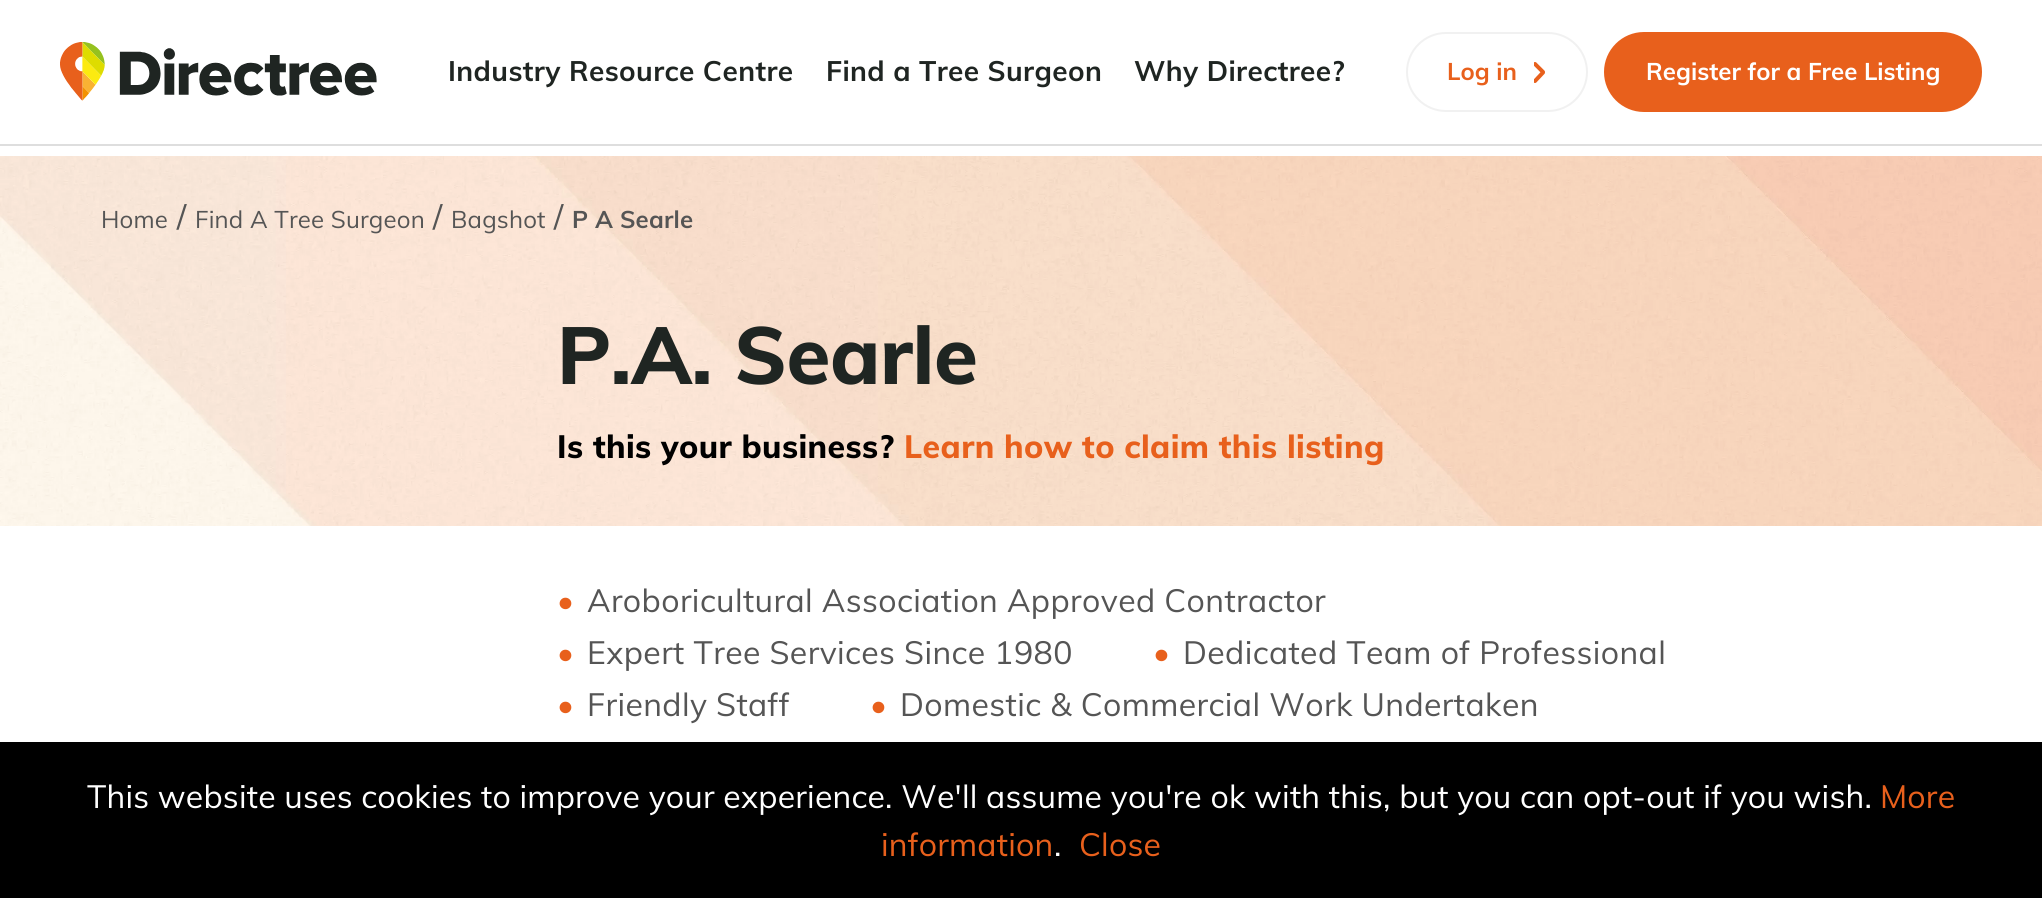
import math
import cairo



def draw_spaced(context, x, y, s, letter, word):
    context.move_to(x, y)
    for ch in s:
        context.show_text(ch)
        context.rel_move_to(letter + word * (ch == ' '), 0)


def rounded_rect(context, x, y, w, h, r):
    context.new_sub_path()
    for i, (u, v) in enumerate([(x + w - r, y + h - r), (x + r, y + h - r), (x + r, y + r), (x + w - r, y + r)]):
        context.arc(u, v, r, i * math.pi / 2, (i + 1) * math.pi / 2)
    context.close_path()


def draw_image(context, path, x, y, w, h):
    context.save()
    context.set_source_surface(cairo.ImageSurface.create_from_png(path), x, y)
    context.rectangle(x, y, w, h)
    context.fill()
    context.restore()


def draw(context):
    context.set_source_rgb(1, 1, 1)
    context.paint()
    context.set_source_rgb(222 / 255, 222 / 255, 222 / 255)
    context.rectangle(0, 144, 2042, 2)
    context.fill()
    draw_image(context, "images/1.png", 60, 42, 317, 59)
    rounded_rect(context, 1407, 33, 180, 78, 39)
    context.set_source_rgb(241 / 255, 241 / 255, 241 / 255)
    context.stroke()
    context.save()
    context.rectangle(1534, 62, 12, 24)
    context.clip()
    context.new_path()
    context.move_to(1535, 64)
    context.line_to(1543, 72)
    context.move_to(1535, 81)
    context.line_to(1543, 72.5)
    context.set_source_rgb(232 / 255, 96 / 255, 28 / 255)
    context.set_line_width(4)
    context.set_line_cap(cairo.LineCap.ROUND)
    context.set_line_join(cairo.LineJoin.ROUND)
    context.stroke()
    context.restore()
    context.set_source_rgb(232 / 255, 96 / 255, 28 / 255)
    rounded_rect(context, 1605, 33, 376, 78, 39)
    context.fill_preserve()
    context.stroke()
    draw_image(context, "images/2.png", 0, 156, 2042, 370)
    context.set_source_rgb(0, 0, 0)
    context.rectangle(0, 742, 2042, 156)
    context.fill()
    context.select_font_face("Muli", cairo.FontSlant.NORMAL, cairo.FontWeight.BOLD)
    context.set_font_size(28)
    context.set_source_rgb(31 / 255, 37 / 255, 34 / 255)
    draw_spaced(context, 448, 81, "Industry Resource Centre", 0.4, 0)
    draw_spaced(context, 826, 81, "Find a Tree Surgeon", 0.4, 0)
    draw_spaced(context, 1134, 81, "Why Directree?", 0.4, 0)
    context.set_font_size(24)
    context.set_source_rgb(232 / 255, 96 / 255, 28 / 255)
    context.move_to(1447, 80)
    context.show_text("Log in")
    context.set_source_rgb(1, 1, 1)
    context.move_to(1646, 80)
    context.show_text("Register for a Free Listing")
    context.select_font_face("Muli")
    context.set_source_rgb(85 / 255, 85 / 255, 85 / 255)
    draw_spaced(context, 101, 228, "Home", 0.2, 0)
    context.set_font_size(32)
    draw_spaced(context, 177, 228, "/", 0.2, 0)
    context.set_font_size(24)
    draw_spaced(context, 195, 228, "Find A Tree Surgeon", 0.2, 0)
    context.set_font_size(32)
    draw_spaced(context, 433, 228, "/", 0.2, 0)
    context.set_font_size(24)
    draw_spaced(context, 451, 228, "Bagshot", 0.2, 0)
    context.set_font_size(32)
    draw_spaced(context, 554, 228, "/", 0.2, 0)
    context.select_font_face("Muli", cairo.FontSlant.NORMAL, cairo.FontWeight.BOLD)
    context.set_font_size(24)
    draw_spaced(context, 572, 228, "P A Searle", 0.2, 0)
    context.select_font_face("Muli ExtraBold")
    context.set_font_size(80)
    context.set_source_rgb(31 / 255, 37 / 255, 34 / 255)
    draw_spaced(context, 557, 384, "P.A. Searle", -0.4, 0)
    context.set_font_size(32)
    context.set_source_rgb(0, 0, 0)
    draw_spaced(context, 557, 458, "Is this your business?", 0.4, 0)
    context.set_source_rgb(232 / 255, 96 / 255, 28 / 255)
    draw_spaced(context, 904, 458, "Learn how to claim this listing", 0.4, 0)
    context.select_font_face("Muli")
    draw_spaced(context, 557, 612, "•", 0.4, 0)
    context.set_source_rgb(85 / 255, 85 / 255, 85 / 255)
    draw_spaced(context, 587, 612, "Aroboricultural Association Approved Contractor", 0.4, 0)
    context.set_source_rgb(232 / 255, 96 / 255, 28 / 255)
    draw_spaced(context, 557, 664, "•", 0.4, 0)
    context.set_source_rgb(85 / 255, 85 / 255, 85 / 255)
    draw_spaced(context, 587, 664, "Expert Tree Services Since 1980", 0.4, 0)
    context.set_source_rgb(232 / 255, 96 / 255, 28 / 255)
    draw_spaced(context, 1153, 664, "•", 0.4, 0)
    context.set_source_rgb(85 / 255, 85 / 255, 85 / 255)
    draw_spaced(context, 1183, 664, "Dedicated Team of Professional", 0.4, 0)
    context.set_source_rgb(232 / 255, 96 / 255, 28 / 255)
    draw_spaced(context, 557, 716, "•", 0.4, 0)
    context.set_source_rgb(85 / 255, 85 / 255, 85 / 255)
    draw_spaced(context, 587, 716, "Friendly Staff", 0.4, 0)
    context.set_source_rgb(232 / 255, 96 / 255, 28 / 255)
    draw_spaced(context, 870, 716, "•", 0.4, 0)
    context.set_source_rgb(85 / 255, 85 / 255, 85 / 255)
    draw_spaced(context, 900, 716, "Domestic & Commercial Work Undertaken", 0.4, 0)
    context.set_source_rgb(1, 1, 1)
    draw_spaced(context, 87, 808, "This website uses cookies to improve your experience. We'll assume you're ok with this, but you can opt-out if you wish.", 0.2, 0)
    context.set_source_rgb(232 / 255, 96 / 255, 28 / 255)
    draw_spaced(context, 1880, 808, "More", 0.2, 0)
    draw_spaced(context, 881, 856, "information", 0.2, 0)
    context.set_source_rgb(1, 1, 1)
    draw_spaced(context, 1054, 856, ".", 0.2, 0)
    context.set_source_rgb(232 / 255, 96 / 255, 28 / 255)
    draw_spaced(context, 1079, 856, "Close", 0.2, 0)


surface = cairo.ImageSurface(cairo.Format.RGB24, 2042, 898)
context = cairo.Context(surface)
options = cairo.FontOptions()
options.set_hint_metrics(cairo.HintMetrics.OFF)
options.set_hint_style(cairo.HintStyle.NONE)
context.set_font_options(options)
context.set_miter_limit(4)
draw(context)
surface.write_to_png("out.png")
